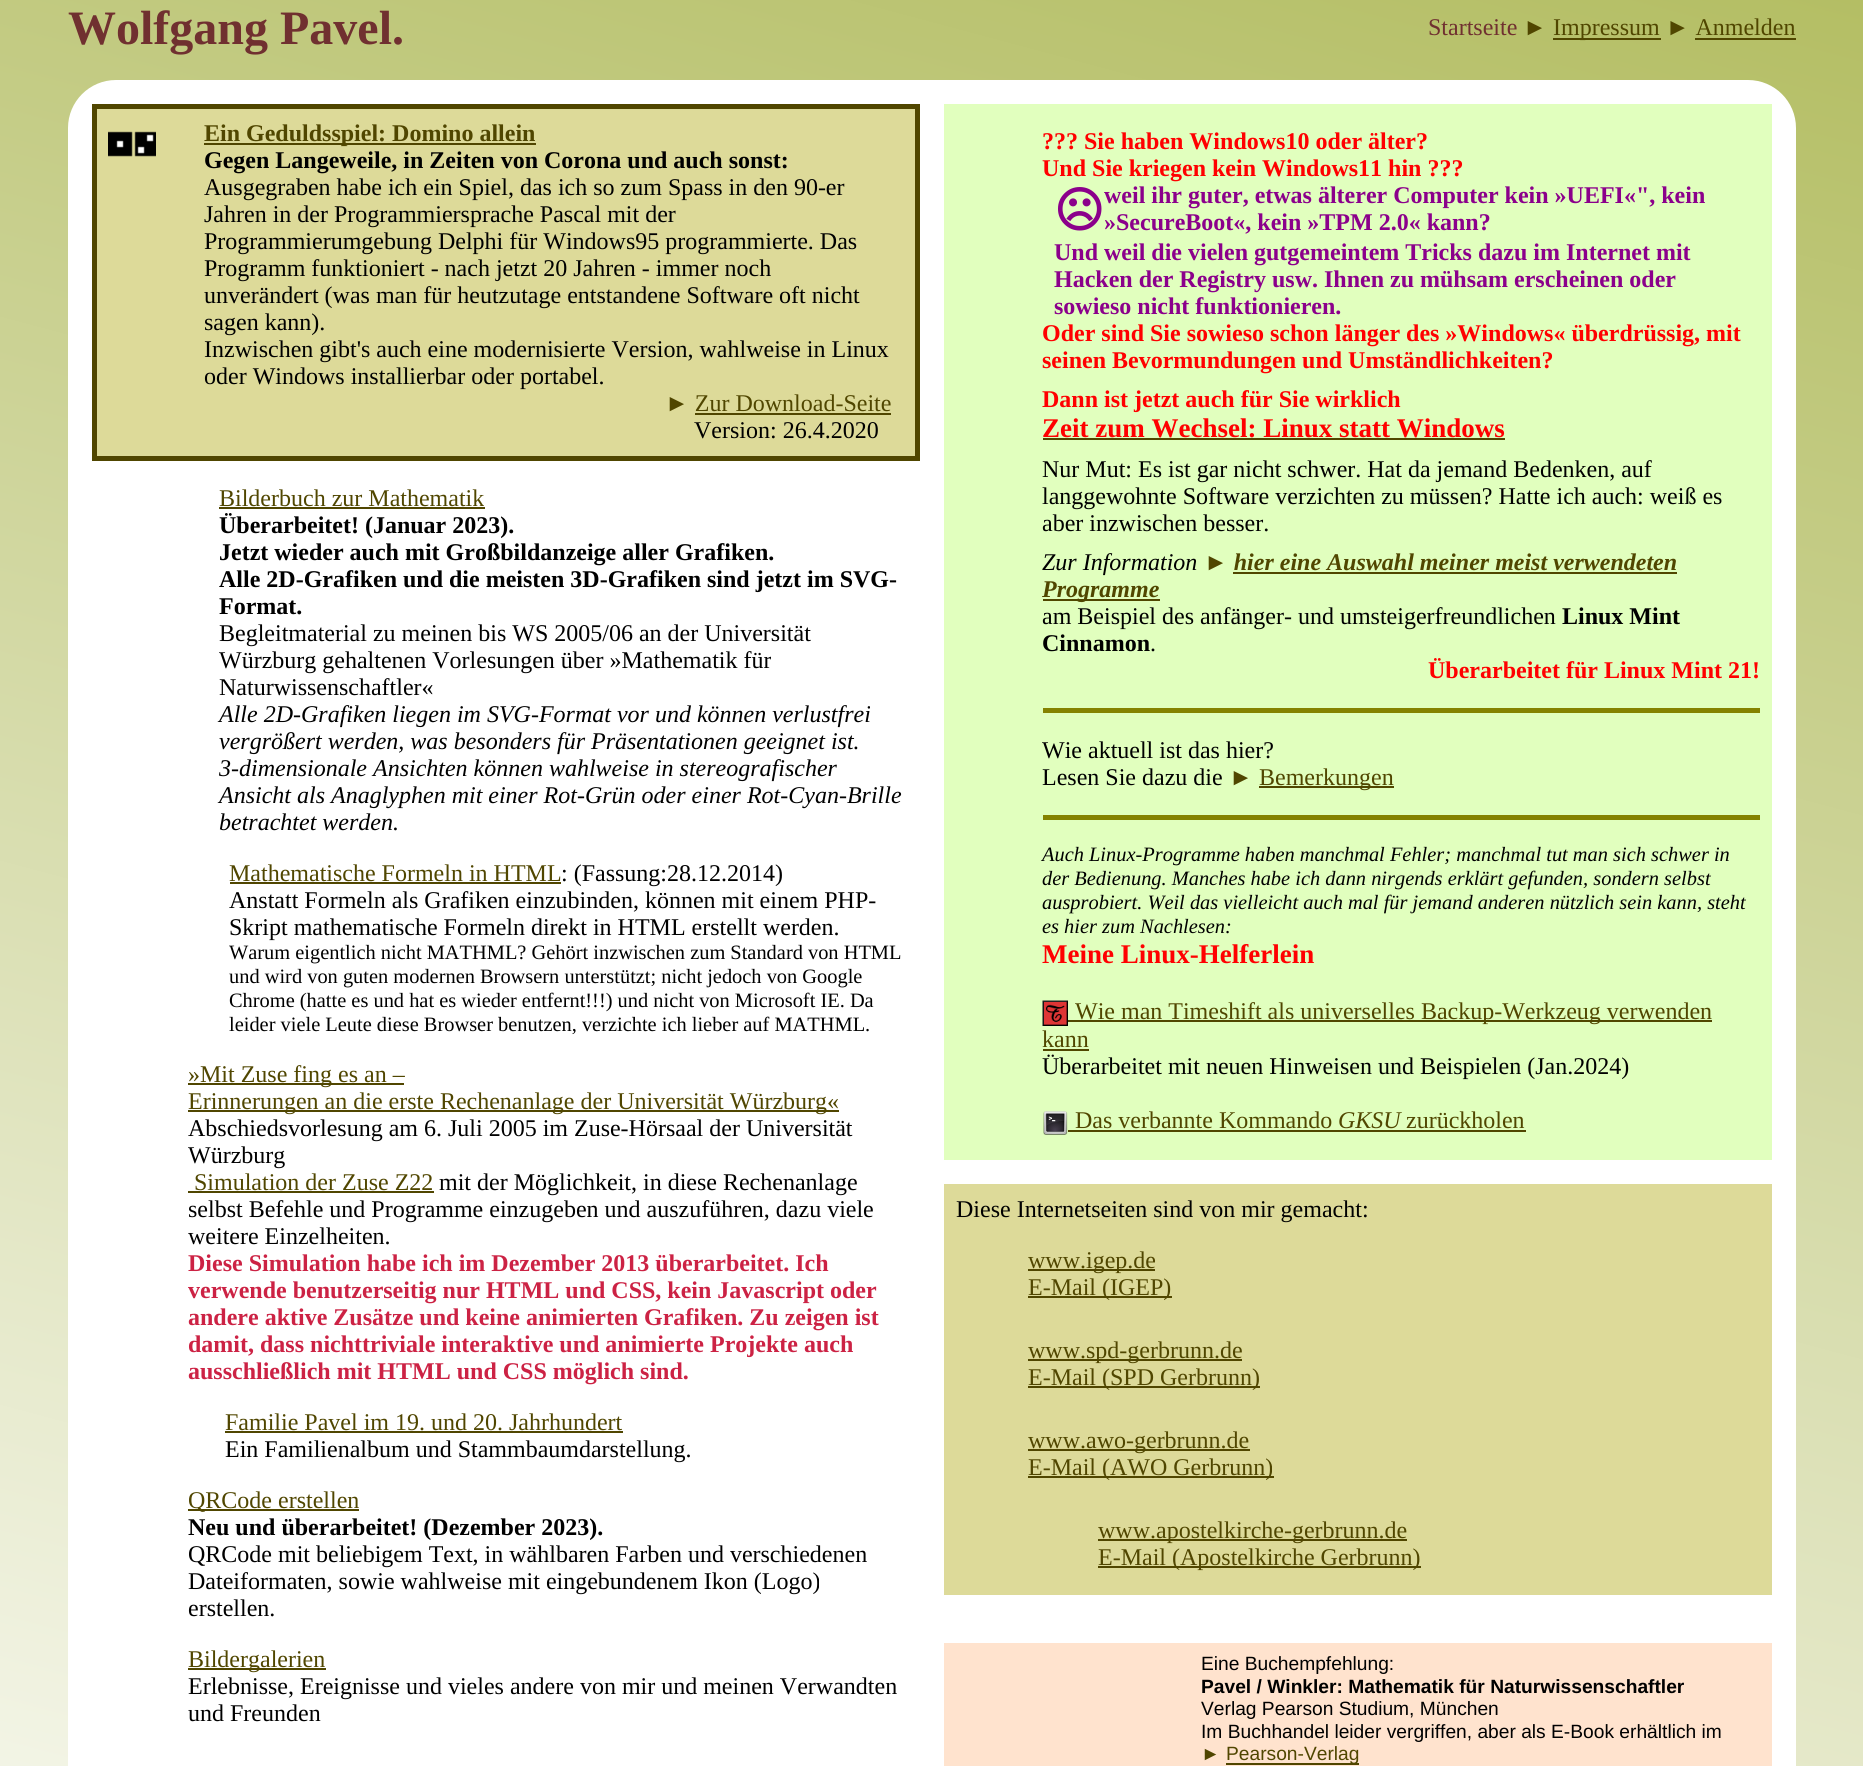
import math
import cairo



def draw_image(context, path, x, y, w, h):
    context.save()
    context.set_source_surface(cairo.ImageSurface.create_from_png(path), x, y)
    context.rectangle(x, y, w, h)
    context.fill()
    context.restore()


def draw(context):
    context.set_source_rgb(1, 1, 1)
    context.paint()
    gradient = cairo.LinearGradient(1215, -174, 535, 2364)
    gradient.add_color_stop_rgba(0, 180 / 255, 190 / 255, 100 / 255, 1)
    gradient.add_color_stop_rgba(1, 1, 1, 1, 1)
    context.set_source(gradient)
    context.rectangle(0, 0, 1863, 1766)
    context.fill()
    context.set_source_rgb(80 / 255, 70 / 255, 0)
    context.rectangle(1553, 38, 108, 2)
    context.fill()
    context.rectangle(1695, 38, 101, 2)
    context.fill()
    context.set_source_rgb(1, 1, 1)
    context.new_path()
    context.move_to(116, 80)
    context.line_to(1748, 80)
    context.curve_to(1774.5, 80, 1796, 101.5, 1796, 128)
    context.line_to(1796, 1766)
    context.curve_to(1796, 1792.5, 1774.5, 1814, 1748, 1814)
    context.line_to(68, 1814)
    context.line_to(68, 128)
    context.curve_to(68, 101.5, 89.5, 80, 116, 80)
    context.close_path()
    context.fill()
    context.set_source_rgb(221 / 255, 218 / 255, 153 / 255)
    context.rectangle(94.5, 106.5, 823, 352)
    context.fill_preserve()
    context.set_source_rgb(80 / 255, 70 / 255, 0)
    context.set_line_width(5)
    context.stroke()
    draw_image(context, "images/1.png", 108, 131, 48, 26)
    context.rectangle(204, 143, 332, 2)
    context.fill()
    context.rectangle(695, 413, 196, 2)
    context.fill()
    context.rectangle(219, 507, 266, 2)
    context.fill()
    context.rectangle(230, 882, 331, 2)
    context.fill()
    context.rectangle(188, 1083, 216, 2)
    context.fill()
    context.rectangle(188, 1110, 651, 2)
    context.fill()
    context.rectangle(188, 1191, 246, 2)
    context.fill()
    context.rectangle(225, 1431, 398, 2)
    context.fill()
    context.rectangle(188, 1509, 171, 2)
    context.fill()
    context.rectangle(188, 1668, 138, 2)
    context.fill()
    context.set_source_rgb(225 / 255, 1, 190 / 255)
    context.rectangle(944, 104, 828, 1056)
    context.fill()
    context.set_source_rgb(80 / 255, 70 / 255, 0)
    context.rectangle(1043, 438, 462, 2)
    context.fill()
    context.rectangle(1233, 572, 444, 2)
    context.fill()
    context.rectangle(1043, 599, 117, 2)
    context.fill()
    context.set_source_rgb(132 / 255, 130 / 255, 0)
    context.rectangle(1043, 708, 717, 5)
    context.fill()
    context.set_source_rgb(80 / 255, 70 / 255, 0)
    context.rectangle(1259, 786, 135, 2)
    context.fill()
    context.set_source_rgb(132 / 255, 130 / 255, 0)
    context.rectangle(1043, 815, 717, 5)
    context.fill()
    draw_image(context, "images/2.png", 1042, 1000, 26, 26)
    context.set_source_rgb(80 / 255, 70 / 255, 0)
    context.rectangle(1068, 1020, 644, 2)
    context.fill()
    context.rectangle(1043, 1049, 46, 2)
    context.fill()
    draw_image(context, "images/3.png", 1043, 1111, 25, 24)
    context.rectangle(1068, 1130, 458, 2)
    context.fill()
    context.set_source_rgb(221 / 255, 218 / 255, 153 / 255)
    context.rectangle(944, 1184, 828, 411)
    context.fill()
    context.set_source_rgb(80 / 255, 70 / 255, 0)
    context.rectangle(1028, 1269, 127, 2)
    context.fill()
    context.rectangle(1028, 1296, 144, 2)
    context.fill()
    context.rectangle(1028, 1359, 214, 2)
    context.fill()
    context.rectangle(1028, 1386, 232, 2)
    context.fill()
    context.rectangle(1028, 1449, 222, 2)
    context.fill()
    context.rectangle(1028, 1476, 246, 2)
    context.fill()
    context.rectangle(1098, 1539, 309, 2)
    context.fill()
    context.rectangle(1098, 1566, 323, 2)
    context.fill()
    context.set_source_rgb(1, 227 / 255, 206 / 255)
    context.rectangle(944, 1643, 828, 123)
    context.fill()
    context.set_source_rgb(80 / 255, 70 / 255, 0)
    context.rectangle(1226, 1763, 133, 2)
    context.fill()
    context.select_font_face("Liberation Serif", cairo.FontSlant.NORMAL, cairo.FontWeight.BOLD)
    context.set_font_size(48)
    context.set_source_rgb(112 / 255, 48 / 255, 48 / 255)
    context.move_to(68, 44)
    context.show_text("Wolfgang Pavel.")
    context.select_font_face("Liberation Serif")
    context.set_font_size(24)
    context.move_to(1428, 35)
    context.show_text("Startseite")
    context.set_source_rgb(80 / 255, 70 / 255, 0)
    context.move_to(1523, 35)
    context.show_text("►")
    context.move_to(1553, 35)
    context.show_text("Impressum ► Anmelden")
    context.select_font_face("Liberation Serif", cairo.FontSlant.NORMAL, cairo.FontWeight.BOLD)
    context.move_to(204, 141)
    context.show_text("Ein Geduldsspiel: Domino allein")
    context.set_source_rgb(0, 0, 0)
    context.move_to(204, 168)
    context.show_text("Gegen Langeweile, in Zeiten von Corona und auch sonst:")
    context.select_font_face("Liberation Serif")
    context.move_to(204, 195)
    context.show_text("Ausgegraben habe ich ein Spiel, das ich so zum Spass in den 90-er")
    context.move_to(204, 222)
    context.show_text("Jahren in der Programmiersprache Pascal mit der")
    context.move_to(204, 249)
    context.show_text("Programmierumgebung Delphi für Windows95 programmierte. Das")
    context.move_to(204, 276)
    context.show_text("Programm funktioniert - nach jetzt 20 Jahren - immer noch")
    context.move_to(204, 303)
    context.show_text("unverändert (was man für heutzutage entstandene Software oft nicht")
    context.move_to(204, 330)
    context.show_text("sagen kann).")
    context.move_to(204, 357)
    context.show_text("Inzwischen gibt's auch eine modernisierte Version, wahlweise in Linux")
    context.move_to(204, 384)
    context.show_text("oder Windows installierbar oder portabel.")
    context.set_source_rgb(80 / 255, 70 / 255, 0)
    context.move_to(665, 411)
    context.show_text("► Zur Download-Seite")
    context.set_source_rgb(0, 0, 0)
    context.move_to(694, 438)
    context.show_text("Version: 26.4.2020")
    context.set_source_rgb(80 / 255, 70 / 255, 0)
    context.move_to(219, 506)
    context.show_text("Bilderbuch zur Mathematik")
    context.select_font_face("Liberation Serif", cairo.FontSlant.NORMAL, cairo.FontWeight.BOLD)
    context.set_source_rgb(0, 0, 0)
    context.move_to(219, 533)
    context.show_text("Überarbeitet! (Januar 2023).")
    context.move_to(219, 560)
    context.show_text("Jetzt wieder auch mit Großbildanzeige aller Grafiken.")
    context.move_to(219, 587)
    context.show_text("Alle 2D-Grafiken und die meisten 3D-Grafiken sind jetzt im SVG-")
    context.move_to(219, 614)
    context.show_text("Format.")
    context.select_font_face("Liberation Serif")
    context.move_to(219, 641)
    context.show_text("Begleitmaterial zu meinen bis WS 2005/06 an der Universität")
    context.move_to(219, 668)
    context.show_text("Würzburg gehaltenen Vorlesungen über »Mathematik für")
    context.move_to(219, 695)
    context.show_text("Naturwissenschaftler«")
    context.select_font_face("Liberation Serif", cairo.FontSlant.ITALIC)
    context.move_to(219, 722)
    context.show_text("Alle 2D-Grafiken liegen im SVG-Format vor und können verlustfrei")
    context.move_to(219, 749)
    context.show_text("vergrößert werden, was besonders für Präsentationen geeignet ist.")
    context.move_to(219, 776)
    context.show_text("3-dimensionale Ansichten können wahlweise in stereografischer")
    context.move_to(219, 803)
    context.show_text("Ansicht als Anaglyphen mit einer Rot-Grün oder einer Rot-Cyan-Brille")
    context.move_to(219, 830)
    context.show_text("betrachtet werden.")
    context.select_font_face("Liberation Serif")
    context.set_source_rgb(80 / 255, 70 / 255, 0)
    context.move_to(229, 881)
    context.show_text("Mathematische Formeln in HTML")
    context.set_source_rgb(0, 0, 0)
    context.move_to(561, 881)
    context.show_text(": (Fassung:28.12.2014)")
    context.move_to(229, 908)
    context.show_text("Anstatt Formeln als Grafiken einzubinden, können mit einem PHP-")
    context.move_to(229, 935)
    context.show_text("Skript mathematische Formeln direkt in HTML erstellt werden.")
    context.set_font_size(20.4)
    context.move_to(229, 959)
    context.show_text("Warum eigentlich nicht MATHML? Gehört inzwischen zum Standard von HTML")
    context.move_to(229, 983)
    context.show_text("und wird von guten modernen Browsern unterstützt; nicht jedoch von Google")
    context.move_to(229, 1007)
    context.show_text("Chrome (hatte es und hat es wieder entfernt!!!) und nicht von Microsoft IE. Da")
    context.move_to(229, 1031)
    context.show_text("leider viele Leute diese Browser benutzen, verzichte ich lieber auf MATHML.")
    context.set_font_size(24)
    context.set_source_rgb(80 / 255, 70 / 255, 0)
    context.move_to(188, 1082)
    context.show_text("»Mit Zuse fing es an –")
    context.move_to(188, 1109)
    context.show_text("Erinnerungen an die erste Rechenanlage der Universität Würzburg«")
    context.set_source_rgb(0, 0, 0)
    context.move_to(188, 1136)
    context.show_text("Abschiedsvorlesung am 6. Juli 2005 im Zuse-Hörsaal der Universität")
    context.move_to(188, 1163)
    context.show_text("Würzburg")
    context.set_source_rgb(80 / 255, 70 / 255, 0)
    context.move_to(194, 1190)
    context.show_text("Simulation der Zuse Z22")
    context.set_source_rgb(0, 0, 0)
    context.move_to(439, 1190)
    context.show_text("mit der Möglichkeit, in diese Rechenanlage")
    context.move_to(188, 1217)
    context.show_text("selbst Befehle und Programme einzugeben und auszuführen, dazu viele")
    context.move_to(188, 1244)
    context.show_text("weitere Einzelheiten.")
    context.select_font_face("Liberation Serif", cairo.FontSlant.NORMAL, cairo.FontWeight.BOLD)
    context.set_source_rgb(204 / 255, 34 / 255, 68 / 255)
    context.move_to(188, 1271)
    context.show_text("Diese Simulation habe ich im Dezember 2013 überarbeitet. Ich")
    context.move_to(188, 1298)
    context.show_text("verwende benutzerseitig nur HTML und CSS, kein Javascript oder")
    context.move_to(188, 1325)
    context.show_text("andere aktive Zusätze und keine animierten Grafiken. Zu zeigen ist")
    context.move_to(188, 1352)
    context.show_text("damit, dass nichttriviale interaktive und animierte Projekte auch")
    context.move_to(188, 1379)
    context.show_text("ausschließlich mit HTML und CSS möglich sind.")
    context.select_font_face("Liberation Serif")
    context.set_source_rgb(80 / 255, 70 / 255, 0)
    context.move_to(225, 1430)
    context.show_text("Familie Pavel im 19. und 20. Jahrhundert")
    context.set_source_rgb(0, 0, 0)
    context.move_to(225, 1457)
    context.show_text("Ein Familienalbum und Stammbaumdarstellung.")
    context.set_source_rgb(80 / 255, 70 / 255, 0)
    context.move_to(188, 1508)
    context.show_text("QRCode erstellen")
    context.select_font_face("Liberation Serif", cairo.FontSlant.NORMAL, cairo.FontWeight.BOLD)
    context.set_source_rgb(0, 0, 0)
    context.move_to(188, 1535)
    context.show_text("Neu und überarbeitet! (Dezember 2023).")
    context.select_font_face("Liberation Serif")
    context.move_to(188, 1562)
    context.show_text("QRCode mit beliebigem Text, in wählbaren Farben und verschiedenen")
    context.move_to(188, 1589)
    context.show_text("Dateiformaten, sowie wahlweise mit eingebundenem Ikon (Logo)")
    context.move_to(188, 1616)
    context.show_text("erstellen.")
    context.set_source_rgb(80 / 255, 70 / 255, 0)
    context.move_to(188, 1667)
    context.show_text("Bildergalerien")
    context.set_source_rgb(0, 0, 0)
    context.move_to(188, 1694)
    context.show_text("Erlebnisse, Ereignisse und vieles andere von mir und meinen Verwandten")
    context.move_to(188, 1721)
    context.show_text("und Freunden")
    context.select_font_face("Liberation Serif", cairo.FontSlant.NORMAL, cairo.FontWeight.BOLD)
    context.set_source_rgb(1, 0, 0)
    context.move_to(1042, 149)
    context.show_text("??? Sie haben Windows10 oder älter?")
    context.move_to(1042, 176)
    context.show_text("Und Sie kriegen kein Windows11 hin ???")
    context.select_font_face("DejaVu Sans", cairo.FontSlant.NORMAL, cairo.FontWeight.BOLD)
    context.set_font_size(48)
    context.set_source_rgb(139 / 255, 0, 139 / 255)
    context.move_to(1054, 227)
    context.show_text("☹")
    context.select_font_face("Liberation Serif", cairo.FontSlant.NORMAL, cairo.FontWeight.BOLD)
    context.set_font_size(24)
    context.move_to(1104, 203)
    context.show_text("weil ihr guter, etwas älterer Computer kein »UEFI«\", kein")
    context.move_to(1104, 230)
    context.show_text("»SecureBoot«, kein »TPM 2.0« kann?")
    context.move_to(1054, 260)
    context.show_text("Und weil die vielen gutgemeintem Tricks dazu im Internet mit")
    context.move_to(1054, 287)
    context.show_text("Hacken der Registry usw. Ihnen zu mühsam erscheinen oder")
    context.move_to(1054, 314)
    context.show_text("sowieso nicht funktionieren.")
    context.set_source_rgb(1, 0, 0)
    context.move_to(1042, 341)
    context.show_text("Oder sind Sie sowieso schon länger des »Windows« überdrüssig, mit")
    context.move_to(1042, 368)
    context.show_text("seinen Bevormundungen und Umständlichkeiten?")
    context.move_to(1042, 407)
    context.show_text("Dann ist jetzt auch für Sie wirklich")
    context.set_font_size(27)
    context.move_to(1042, 437)
    context.show_text("Zeit zum Wechsel: Linux statt Windows")
    context.select_font_face("Liberation Serif")
    context.set_font_size(24)
    context.set_source_rgb(0, 0, 0)
    context.move_to(1042, 477)
    context.show_text("Nur Mut: Es ist gar nicht schwer. Hat da jemand Bedenken, auf")
    context.move_to(1042, 504)
    context.show_text("langgewohnte Software verzichten zu müssen? Hatte ich auch: weiß es")
    context.move_to(1042, 531)
    context.show_text("aber inzwischen besser.")
    context.select_font_face("Liberation Serif", cairo.FontSlant.ITALIC)
    context.move_to(1042, 570)
    context.show_text("Zur Information")
    context.select_font_face("Liberation Serif", cairo.FontSlant.ITALIC, cairo.FontWeight.BOLD)
    context.set_source_rgb(80 / 255, 70 / 255, 0)
    context.move_to(1204, 570)
    context.show_text("► hier eine Auswahl meiner meist verwendeten")
    context.move_to(1042, 597)
    context.show_text("Programme")
    context.select_font_face("Liberation Serif")
    context.set_source_rgb(0, 0, 0)
    context.move_to(1042, 624)
    context.show_text("am Beispiel des anfänger- und umsteigerfreundlichen")
    context.select_font_face("Liberation Serif", cairo.FontSlant.NORMAL, cairo.FontWeight.BOLD)
    context.move_to(1562, 624)
    context.show_text("Linux Mint")
    context.move_to(1042, 651)
    context.show_text("Cinnamon")
    context.select_font_face("Liberation Serif")
    context.move_to(1150, 651)
    context.show_text(".")
    context.select_font_face("Liberation Serif", cairo.FontSlant.NORMAL, cairo.FontWeight.BOLD)
    context.set_source_rgb(1, 0, 0)
    context.move_to(1428, 678)
    context.show_text("Überarbeitet für Linux Mint 21!")
    context.select_font_face("Liberation Serif")
    context.set_source_rgb(0, 0, 0)
    context.move_to(1042, 758)
    context.show_text("Wie aktuell ist das hier?")
    context.move_to(1042, 785)
    context.show_text("Lesen Sie dazu die")
    context.set_source_rgb(80 / 255, 70 / 255, 0)
    context.move_to(1229, 785)
    context.show_text("►")
    context.move_to(1259, 785)
    context.show_text("Bemerkungen")
    context.select_font_face("Liberation Serif", cairo.FontSlant.ITALIC)
    context.set_font_size(20.4)
    context.set_source_rgb(0, 0, 0)
    context.move_to(1042, 861)
    context.show_text("Auch Linux-Programme haben manchmal Fehler; manchmal tut man sich schwer in")
    context.move_to(1042, 885)
    context.show_text("der Bedienung. Manches habe ich dann nirgends erklärt gefunden, sondern selbst")
    context.move_to(1042, 909)
    context.show_text("ausprobiert. Weil das vielleicht auch mal für jemand anderen nützlich sein kann, steht")
    context.move_to(1042, 933)
    context.show_text("es hier zum Nachlesen:")
    context.select_font_face("Liberation Serif", cairo.FontSlant.NORMAL, cairo.FontWeight.BOLD)
    context.set_font_size(27)
    context.set_source_rgb(1, 0, 0)
    context.move_to(1042, 963)
    context.show_text("Meine Linux-Helferlein")
    context.select_font_face("Liberation Serif")
    context.set_font_size(24)
    context.set_source_rgb(80 / 255, 70 / 255, 0)
    context.move_to(1075, 1019)
    context.show_text("Wie man Timeshift als universelles Backup-Werkzeug verwenden")
    context.move_to(1042, 1047)
    context.show_text("kann")
    context.set_source_rgb(0, 0, 0)
    context.move_to(1042, 1074)
    context.show_text("Überarbeitet mit neuen Hinweisen und Beispielen (Jan.2024)")
    context.set_source_rgb(80 / 255, 70 / 255, 0)
    context.move_to(1075, 1128)
    context.show_text("Das verbannte Kommando")
    context.select_font_face("Liberation Serif", cairo.FontSlant.ITALIC)
    context.move_to(1338, 1128)
    context.show_text("GKSU")
    context.select_font_face("Liberation Serif")
    context.move_to(1406, 1128)
    context.show_text("zurückholen")
    context.set_source_rgb(0, 0, 0)
    context.move_to(956, 1217)
    context.show_text("Diese Internetseiten sind von mir gemacht:")
    context.set_source_rgb(80 / 255, 70 / 255, 0)
    context.move_to(1028, 1268)
    context.show_text("www.igep.de")
    context.move_to(1028, 1295)
    context.show_text("E-Mail (IGEP)")
    context.move_to(1028, 1358)
    context.show_text("www.spd-gerbrunn.de")
    context.move_to(1028, 1385)
    context.show_text("E-Mail (SPD Gerbrunn)")
    context.move_to(1028, 1448)
    context.show_text("www.awo-gerbrunn.de")
    context.move_to(1028, 1475)
    context.show_text("E-Mail (AWO Gerbrunn)")
    context.move_to(1098, 1538)
    context.show_text("www.apostelkirche-gerbrunn.de")
    context.move_to(1098, 1565)
    context.show_text("E-Mail (Apostelkirche Gerbrunn)")
    context.select_font_face("Liberation Sans")
    context.set_font_size(19.2)
    context.set_source_rgb(0, 0, 0)
    context.move_to(1201, 1670)
    context.show_text("Eine Buchempfehlung:")
    context.select_font_face("Liberation Sans", cairo.FontSlant.NORMAL, cairo.FontWeight.BOLD)
    context.move_to(1201, 1693)
    context.show_text("Pavel / Winkler: Mathematik für Naturwissenschaftler")
    context.select_font_face("Liberation Sans")
    context.move_to(1201, 1715)
    context.show_text("Verlag Pearson Studium, München")
    context.move_to(1201, 1738)
    context.show_text("Im Buchhandel leider vergriffen, aber als E-Book erhältlich im")
    context.set_source_rgb(80 / 255, 70 / 255, 0)
    context.move_to(1201, 1760)
    context.show_text("►")
    context.move_to(1226, 1760)
    context.show_text("Pearson-Verlag")


surface = cairo.ImageSurface(cairo.Format.RGB24, 1863, 1766)
context = cairo.Context(surface)
options = cairo.FontOptions()
options.set_hint_metrics(cairo.HintMetrics.OFF)
options.set_hint_style(cairo.HintStyle.NONE)
context.set_font_options(options)
context.set_miter_limit(4)
draw(context)
surface.write_to_png("out.png")
